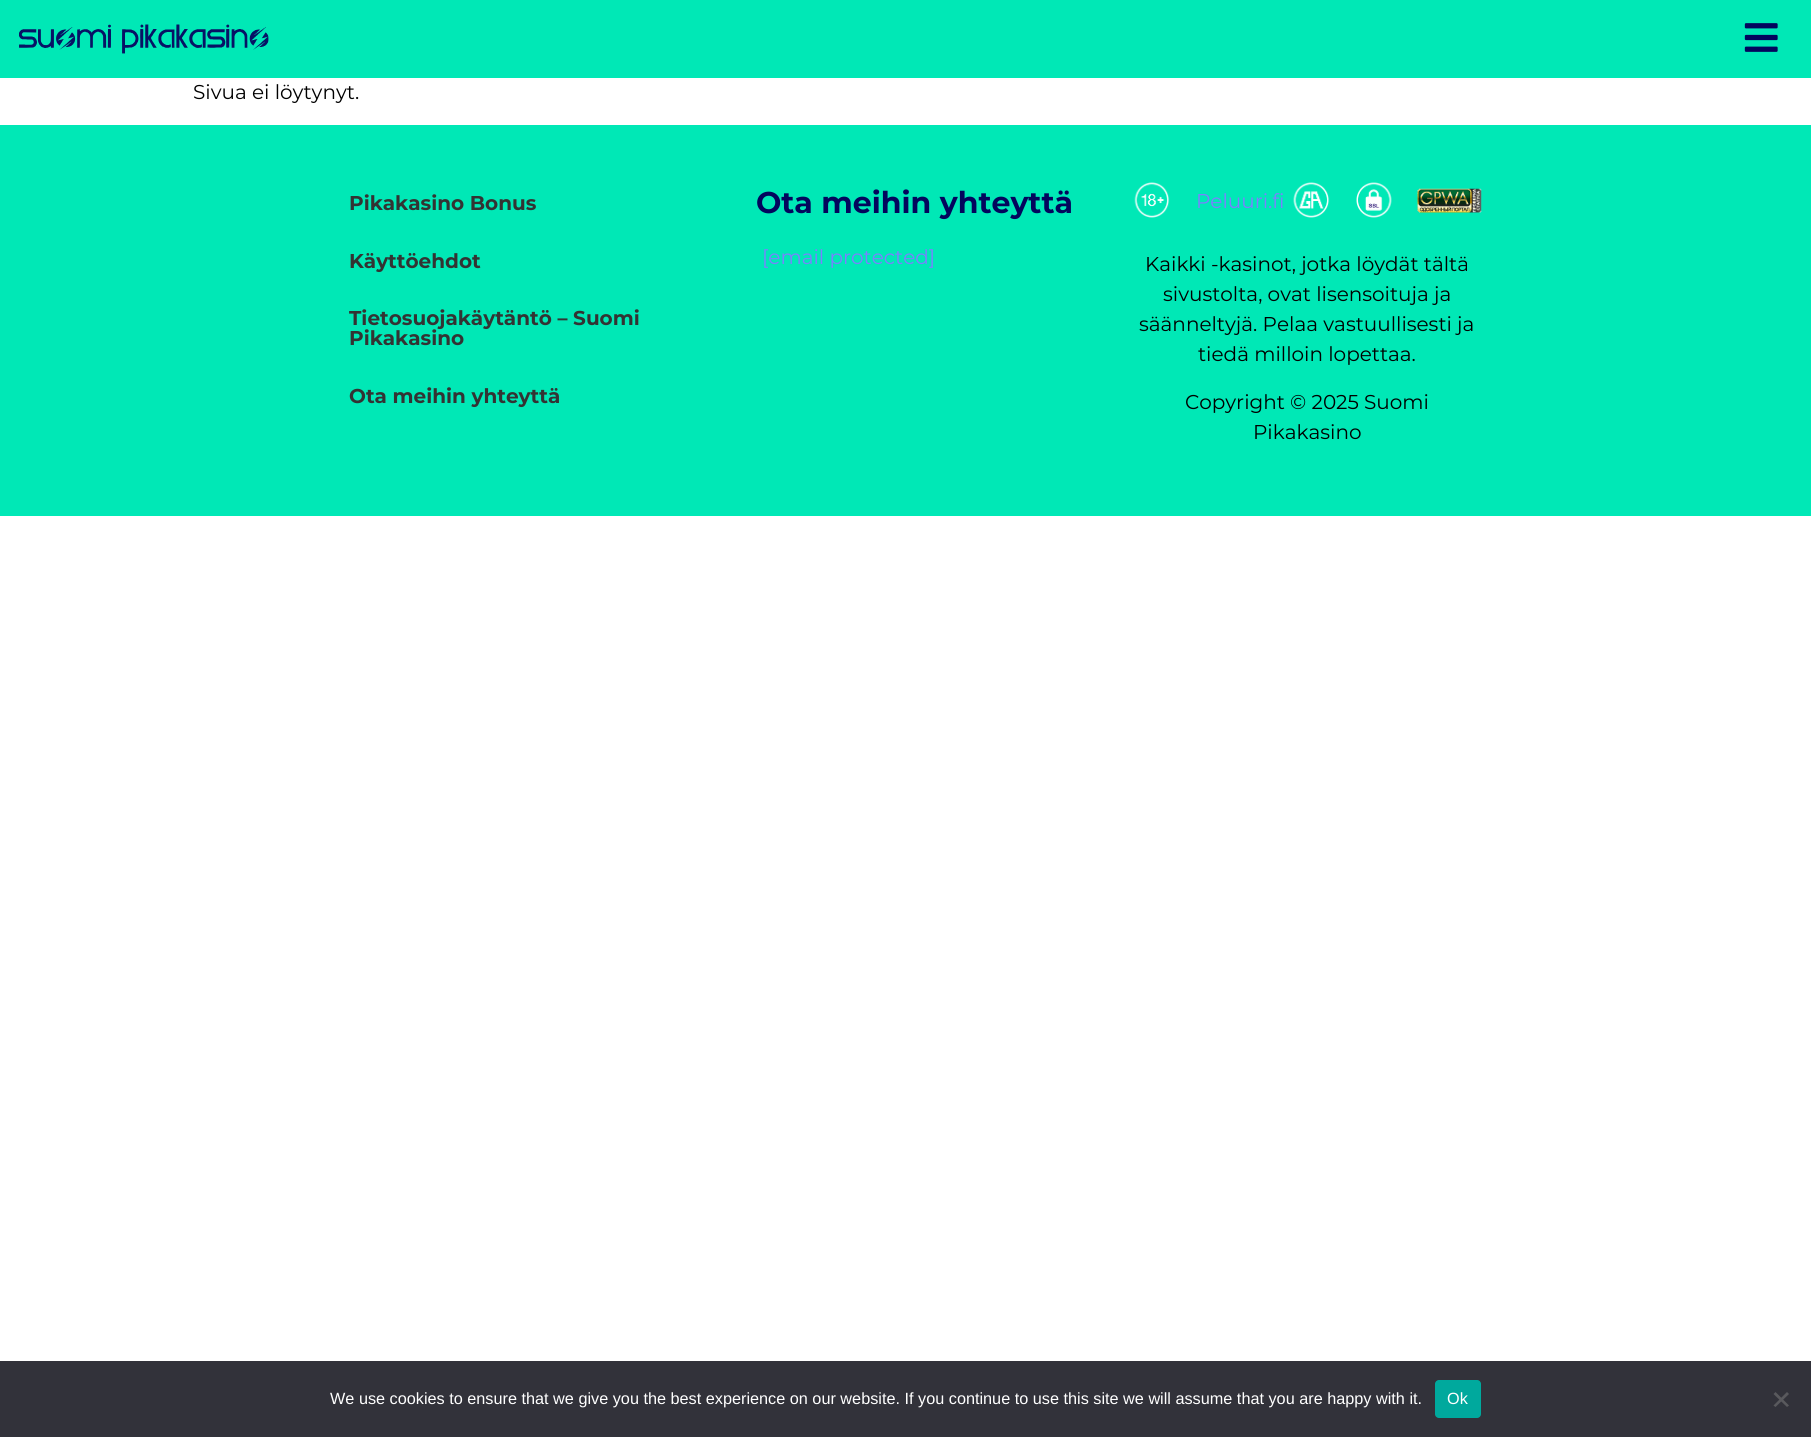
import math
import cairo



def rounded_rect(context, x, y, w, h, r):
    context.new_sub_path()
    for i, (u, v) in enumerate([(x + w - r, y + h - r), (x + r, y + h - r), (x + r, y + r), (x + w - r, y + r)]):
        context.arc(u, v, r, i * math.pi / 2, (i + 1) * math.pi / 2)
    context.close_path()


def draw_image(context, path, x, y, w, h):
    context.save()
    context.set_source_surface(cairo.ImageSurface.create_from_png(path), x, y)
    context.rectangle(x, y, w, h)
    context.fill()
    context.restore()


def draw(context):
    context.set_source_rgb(1, 1, 1)
    context.paint()
    context.set_source_rgb(0, 232 / 255, 182 / 255)
    context.rectangle(0, 0, 1811, 78)
    context.fill()
    draw_image(context, "images/1.png", 19, 24, 250, 30)
    draw_image(context, "images/2.png", 1744, 23, 34, 29)
    context.rectangle(0, 125, 1811, 391)
    context.fill()
    draw_image(context, "images/3.png", 1134, 182, 36, 36)
    draw_image(context, "images/4.png", 1293, 182, 37, 36)
    draw_image(context, "images/5.png", 1356, 182, 36, 36)
    draw_image(context, "images/6.png", 1417, 188, 65, 25)
    context.set_source_rgb(50 / 255, 50 / 255, 58 / 255)
    context.rectangle(0, 1361, 1811, 76)
    context.fill()
    context.set_source_rgb(0, 169 / 255, 157 / 255)
    rounded_rect(context, 1435, 1380, 46, 38, 4)
    context.fill()
    context.set_source_rgb(89 / 255, 89 / 255, 93 / 255)
    context.new_path()
    context.move_to(1787, 1392)
    context.line_to(1789, 1394)
    context.line_to(1775.5, 1407)
    context.line_to(1773.5, 1405.5)
    context.close_path()
    context.fill()
    context.new_path()
    context.move_to(1773.5, 1394)
    context.line_to(1775.5, 1392)
    context.line_to(1789, 1405.5)
    context.line_to(1787, 1407)
    context.close_path()
    context.fill()
    context.select_font_face("Montserrat")
    context.set_font_size(20)
    context.set_source_rgb(0, 0, 0)
    context.move_to(193, 99)
    context.show_text("Sivua ei löytynyt.")
    context.select_font_face("Montserrat", cairo.FontSlant.NORMAL, cairo.FontWeight.BOLD)
    context.set_source_rgb(51 / 255, 51 / 255, 51 / 255)
    context.move_to(349, 210)
    context.show_text("Pikakasino Bonus")
    context.move_to(349, 268)
    context.show_text("Käyttöehdot")
    context.move_to(349, 325)
    context.show_text("Tietosuojakäytäntö – Suomi")
    context.move_to(349, 345)
    context.show_text("Pikakasino")
    context.move_to(349, 403)
    context.show_text("Ota meihin yhteyttä")
    context.set_font_size(30)
    context.set_source_rgb(3 / 255, 6 / 255, 93 / 255)
    context.move_to(756, 213)
    context.show_text("Ota meihin yhteyttä")
    context.select_font_face("Montserrat")
    context.set_font_size(20)
    context.set_source_rgb(123 / 255, 127 / 255, 1)
    context.move_to(762, 264)
    context.show_text("[email protected]")
    context.move_to(1196, 208)
    context.show_text("Peluuri.fi")
    context.set_source_rgb(0, 0, 0)
    context.move_to(1145, 271)
    context.show_text("Kaikki -kasinot, jotka löydät tältä")
    context.move_to(1163, 301)
    context.show_text("sivustolta, ovat lisensoituja ja")
    context.move_to(1139, 331)
    context.show_text("säänneltyjä. Pelaa vastuullisesti ja")
    context.move_to(1198, 361)
    context.show_text("tiedä milloin lopettaa.")
    context.move_to(1185, 409)
    context.show_text("Copyright © 2025 Suomi")
    context.move_to(1253, 439)
    context.show_text("Pikakasino")
    context.select_font_face("Liberation Sans")
    context.set_font_size(16.25)
    context.set_source_rgb(1, 1, 1)
    context.move_to(330, 1404)
    context.show_text("We use cookies to ensure that we give you the best experience on our website. If you continue to use this site we will assume that you are happy with it.")
    context.move_to(1447, 1404)
    context.show_text("Ok")


surface = cairo.ImageSurface(cairo.Format.RGB24, 1811, 1437)
context = cairo.Context(surface)
options = cairo.FontOptions()
options.set_hint_metrics(cairo.HintMetrics.OFF)
options.set_hint_style(cairo.HintStyle.NONE)
context.set_font_options(options)
context.set_miter_limit(4)
draw(context)
surface.write_to_png("out.png")
